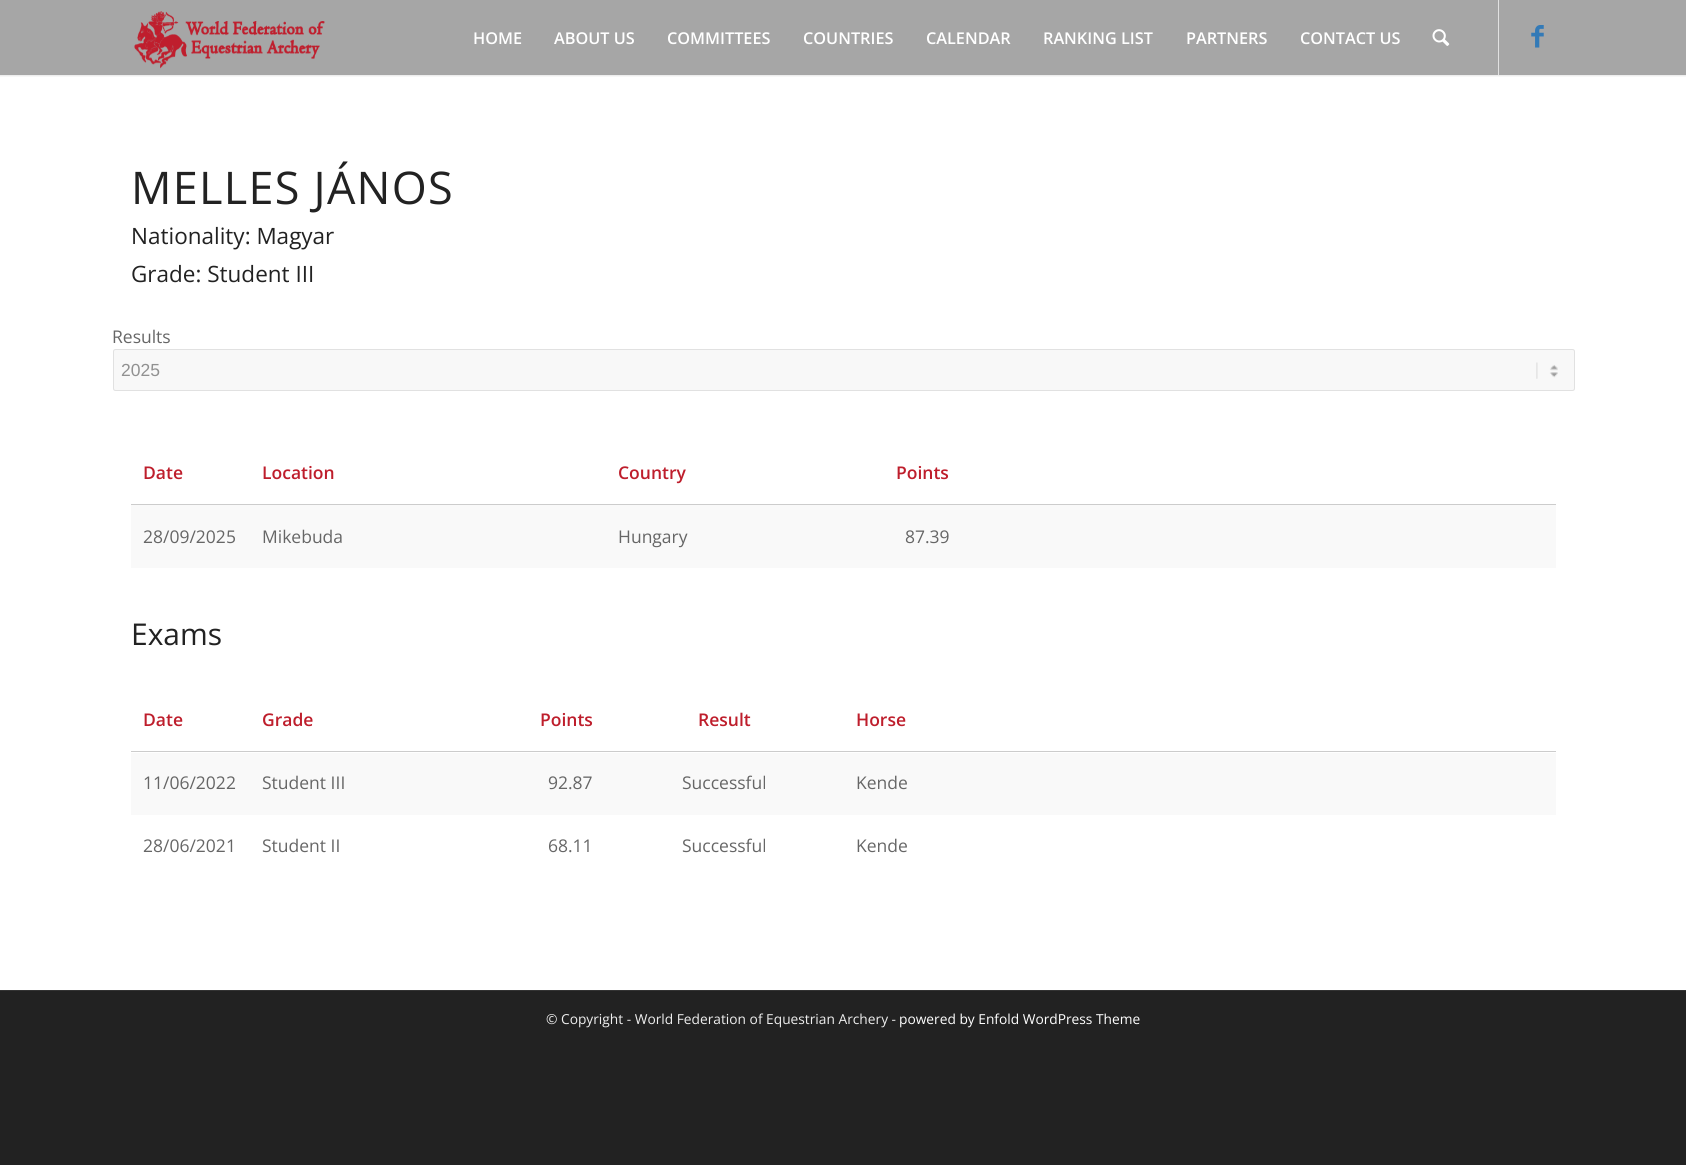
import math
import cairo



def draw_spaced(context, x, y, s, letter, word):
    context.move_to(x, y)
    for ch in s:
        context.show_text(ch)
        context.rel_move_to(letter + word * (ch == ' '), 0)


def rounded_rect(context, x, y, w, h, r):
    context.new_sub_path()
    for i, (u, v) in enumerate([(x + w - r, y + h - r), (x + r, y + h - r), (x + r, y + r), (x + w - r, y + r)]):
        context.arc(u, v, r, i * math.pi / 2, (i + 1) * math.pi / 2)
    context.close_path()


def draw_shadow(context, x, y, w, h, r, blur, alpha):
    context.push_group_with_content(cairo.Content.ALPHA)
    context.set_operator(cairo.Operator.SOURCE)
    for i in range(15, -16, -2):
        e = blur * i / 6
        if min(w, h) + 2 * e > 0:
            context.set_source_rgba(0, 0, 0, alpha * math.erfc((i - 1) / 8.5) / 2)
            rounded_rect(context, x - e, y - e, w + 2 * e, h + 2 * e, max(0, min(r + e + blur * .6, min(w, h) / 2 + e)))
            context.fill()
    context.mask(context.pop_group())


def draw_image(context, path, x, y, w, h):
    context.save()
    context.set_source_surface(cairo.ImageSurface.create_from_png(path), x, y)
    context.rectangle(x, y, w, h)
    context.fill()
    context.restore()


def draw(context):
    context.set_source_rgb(34 / 255, 34 / 255, 34 / 255)
    context.paint()
    context.set_source_rgb(166 / 255, 166 / 255, 166 / 255)
    context.rectangle(0, 0, 1686, 75)
    context.fill()
    context.set_source_rgb(1, 1, 1)
    context.rectangle(0, 75, 1686, 915)
    context.fill()
    context.save()
    context.rectangle(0, 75, 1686, 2)
    context.clip()
    context.set_source_rgb(0, 0, 0)
    draw_shadow(context, -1, -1, 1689, 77, 0, 1, 0.1)
    context.restore()
    draw_image(context, "images/1.png", 134, 11, 191, 58)
    context.set_source_rgb(225 / 255, 225 / 255, 225 / 255)
    context.rectangle(1498, 0, 1, 75)
    context.fill()
    draw_image(context, "images/2.png", 1432, 29, 18, 17)
    draw_image(context, "images/3.png", 1531, 25, 13, 23)
    context.set_source_rgb(248 / 255, 248 / 255, 248 / 255)
    rounded_rect(context, 113, 349, 1462, 42, 2.5)
    context.fill()
    draw_image(context, "images/4.png", 1536, 362, 22, 17)
    rounded_rect(context, 113.5, 349.5, 1461, 41, 2)
    context.set_source_rgb(225 / 255, 225 / 255, 225 / 255)
    context.set_line_width(1)
    context.stroke()
    context.set_source_rgb(204 / 255, 204 / 255, 204 / 255)
    context.rectangle(131, 504, 1425, 1)
    context.fill()
    context.set_source_rgb(249 / 255, 249 / 255, 249 / 255)
    context.rectangle(131, 505, 1425, 63)
    context.fill()
    context.set_source_rgb(204 / 255, 204 / 255, 204 / 255)
    context.rectangle(131, 751, 1425, 1)
    context.fill()
    context.set_source_rgb(249 / 255, 249 / 255, 249 / 255)
    context.rectangle(131, 753, 1425, 62)
    context.fill()
    context.set_source_rgb(51 / 255, 51 / 255, 51 / 255)
    context.rectangle(0, 990, 1686, 1)
    context.fill()
    context.select_font_face("Open Sans SemiBold")
    context.set_font_size(16.25)
    context.set_source_rgb(1, 1, 1)
    context.move_to(473, 44)
    context.show_text("HOME")
    context.move_to(554, 44)
    context.show_text("ABOUT US")
    context.move_to(667, 44)
    context.show_text("COMMITTEES")
    context.move_to(803, 44)
    context.show_text("COUNTRIES")
    context.move_to(926, 44)
    context.show_text("CALENDAR")
    context.move_to(1043, 44)
    context.show_text("RANKING LIST")
    context.move_to(1186, 44)
    context.show_text("PARTNERS")
    context.move_to(1300, 44)
    context.show_text("CONTACT US")
    context.select_font_face("Open Sans")
    context.set_font_size(45)
    context.set_source_rgb(34 / 255, 34 / 255, 34 / 255)
    draw_spaced(context, 131, 204, "MELLES JÁNOS", 1.25, 0)
    context.set_font_size(22.5)
    context.move_to(131, 244)
    context.show_text("Nationality: Magyar")
    context.move_to(131, 282)
    context.show_text("Grade: Student III")
    context.set_font_size(17.5)
    context.set_source_rgb(102 / 255, 102 / 255, 102 / 255)
    context.move_to(112, 343)
    context.show_text("Results")
    context.select_font_face("Liberation Sans")
    context.set_source_rgb(145 / 255, 145 / 255, 145 / 255)
    context.move_to(121, 376)
    context.show_text("2025")
    context.select_font_face("Open Sans SemiBold")
    context.set_source_rgb(190 / 255, 30 / 255, 44 / 255)
    context.move_to(143, 479)
    context.show_text("Date")
    context.move_to(262, 479)
    context.show_text("Location")
    context.move_to(618, 479)
    context.show_text("Country")
    context.move_to(896, 479)
    context.show_text("Points")
    context.select_font_face("Open Sans")
    context.set_source_rgb(102 / 255, 102 / 255, 102 / 255)
    context.move_to(143, 543)
    context.show_text("28/09/2025")
    context.move_to(262, 543)
    context.show_text("Mikebuda")
    context.move_to(618, 543)
    context.show_text("Hungary")
    context.move_to(905, 543)
    context.show_text("87.39")
    context.set_font_size(30)
    context.set_source_rgb(34 / 255, 34 / 255, 34 / 255)
    context.move_to(131, 645)
    context.show_text("Exams")
    context.select_font_face("Open Sans SemiBold")
    context.set_font_size(17.5)
    context.set_source_rgb(190 / 255, 30 / 255, 44 / 255)
    context.move_to(143, 726)
    context.show_text("Date")
    context.move_to(262, 726)
    context.show_text("Grade")
    context.move_to(540, 726)
    context.show_text("Points")
    context.move_to(698, 726)
    context.show_text("Result")
    context.move_to(856, 726)
    context.show_text("Horse")
    context.select_font_face("Open Sans")
    context.set_source_rgb(102 / 255, 102 / 255, 102 / 255)
    context.move_to(143, 789)
    context.show_text("11/06/2022")
    context.move_to(262, 789)
    context.show_text("Student III")
    context.move_to(548, 789)
    context.show_text("92.87")
    context.move_to(682, 789)
    context.show_text("Successful")
    context.move_to(856, 789)
    context.show_text("Kende")
    context.move_to(143, 852)
    context.show_text("28/06/2021")
    context.move_to(262, 852)
    context.show_text("Student II")
    context.move_to(548, 852)
    context.show_text("68.11")
    context.move_to(682, 852)
    context.show_text("Successful")
    context.move_to(856, 852)
    context.show_text("Kende")
    context.set_font_size(13.75)
    context.set_source_rgb(238 / 255, 238 / 255, 238 / 255)
    context.move_to(546, 1024)
    context.show_text("© Copyright - World Federation of Equestrian Archery -")
    context.set_source_rgb(1, 1, 1)
    context.move_to(899, 1024)
    context.show_text("powered by Enfold WordPress Theme")


surface = cairo.ImageSurface(cairo.Format.RGB24, 1686, 1165)
context = cairo.Context(surface)
options = cairo.FontOptions()
options.set_hint_metrics(cairo.HintMetrics.OFF)
options.set_hint_style(cairo.HintStyle.NONE)
context.set_font_options(options)
context.set_miter_limit(4)
draw(context)
surface.write_to_png("out.png")
